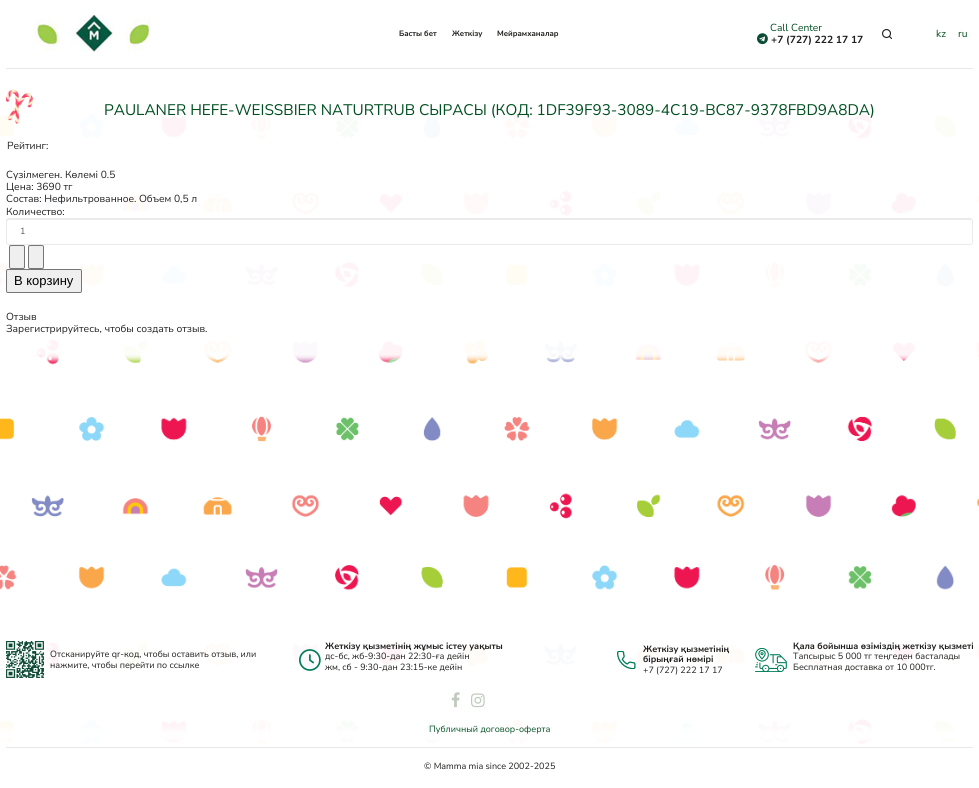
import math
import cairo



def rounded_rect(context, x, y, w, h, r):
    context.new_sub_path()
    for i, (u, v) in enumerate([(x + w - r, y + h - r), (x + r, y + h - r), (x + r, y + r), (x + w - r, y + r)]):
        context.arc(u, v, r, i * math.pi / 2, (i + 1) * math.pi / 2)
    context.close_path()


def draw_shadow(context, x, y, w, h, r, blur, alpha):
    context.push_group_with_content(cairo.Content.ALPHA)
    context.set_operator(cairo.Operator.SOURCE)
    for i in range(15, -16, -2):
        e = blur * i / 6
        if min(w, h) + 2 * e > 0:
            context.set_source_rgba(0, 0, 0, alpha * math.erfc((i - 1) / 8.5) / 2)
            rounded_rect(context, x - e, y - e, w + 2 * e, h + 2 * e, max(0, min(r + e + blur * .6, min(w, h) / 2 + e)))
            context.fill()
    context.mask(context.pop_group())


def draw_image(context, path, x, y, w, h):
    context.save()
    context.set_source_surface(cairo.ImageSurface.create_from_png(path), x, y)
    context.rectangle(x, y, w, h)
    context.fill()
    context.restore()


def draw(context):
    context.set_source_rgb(1, 1, 1)
    context.paint()
    draw_image(context, "images/1.png", 0, 113, 979, 632)
    context.save()
    context.rectangle(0, 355, 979, 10)
    context.clip()
    draw_shadow(context, -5, 64, 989, 296, 0, 2.5, 0.95)
    context.restore()
    context.set_source_rgb(232 / 255, 232 / 255, 232 / 255)
    context.rectangle(6, 68, 967, 1)
    context.fill()
    draw_image(context, "images/2.png", 34, 15, 116, 37)
    draw_image(context, "images/3.png", 757, 33, 11, 12)
    draw_image(context, "images/4.png", 882, 29, 10, 10)
    context.set_source_rgba(1, 1, 1, 0.95)
    context.rectangle(0, 113, 979, 242)
    context.fill()
    draw_image(context, "images/5.png", 6, 89, 27, 35)
    context.set_source_rgb(236 / 255, 236 / 255, 236 / 255)
    context.new_path()
    context.move_to(9, 220)
    context.line_to(970, 220)
    context.curve_to(971, 220, 972, 221, 972, 222)
    context.line_to(972, 221)
    context.curve_to(972, 220, 971, 219, 970, 219)
    context.line_to(9, 219)
    context.line_to(7, 220)
    context.line_to(7, 222)
    context.curve_to(7, 221, 8, 220, 9, 220)
    context.close_path()
    context.fill()
    rounded_rect(context, 6.5, 218.5, 966, 26, 2.5)
    context.set_source_rgb(234 / 255, 234 / 255, 234 / 255)
    context.set_line_width(1)
    context.stroke()
    context.set_source_rgb(239 / 255, 239 / 255, 239 / 255)
    rounded_rect(context, 9.5, 245.5, 15, 23, 1.5)
    context.fill_preserve()
    context.set_source_rgb(118 / 255, 118 / 255, 118 / 255)
    context.stroke()
    context.set_source_rgb(239 / 255, 239 / 255, 239 / 255)
    rounded_rect(context, 28.5, 245.5, 15, 23, 1.5)
    context.fill_preserve()
    context.set_source_rgb(118 / 255, 118 / 255, 118 / 255)
    context.stroke()
    context.set_source_rgb(239 / 255, 239 / 255, 239 / 255)
    rounded_rect(context, 6.5, 269.5, 75, 23, 1.5)
    context.fill_preserve()
    context.set_source_rgb(118 / 255, 118 / 255, 118 / 255)
    context.stroke()
    context.save()
    context.set_fill_rule(cairo.FillRule.EVEN_ODD)
    context.new_path()
    context.move_to(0, 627)
    context.line_to(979, 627)
    context.line_to(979, 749)
    context.line_to(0, 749)
    context.close_path()
    context.move_to(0, 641)
    context.line_to(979, 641)
    context.line_to(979, 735)
    context.line_to(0, 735)
    context.close_path()
    context.clip()
    context.set_source_rgb(1, 1, 1)
    draw_shadow(context, -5, 636, 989, 104, 0, 2.5, 0.95)
    context.restore()
    context.set_source_rgba(1, 1, 1, 0.95)
    context.rectangle(0, 642, 979, 93)
    context.fill()
    draw_image(context, "images/6.png", 6, 641, 38, 37)
    draw_image(context, "images/7.png", 299, 649, 22, 22)
    draw_image(context, "images/8.png", 617, 651, 19, 18)
    draw_image(context, "images/9.png", 755, 648, 32, 24)
    draw_image(context, "images/10.png", 451, 692, 9, 16)
    draw_image(context, "images/11.png", 471, 693, 14, 15)
    context.save()
    context.rectangle(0, 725, 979, 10)
    context.clip()
    context.set_source_rgb(1, 1, 1)
    draw_shadow(context, -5, 730, 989, 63, 0, 2.5, 0.95)
    context.restore()
    context.rectangle(0, 735, 956, 10)
    context.fill()
    context.set_source_rgb(232 / 255, 232 / 255, 232 / 255)
    context.rectangle(6, 747, 967, 1)
    context.fill()
    context.select_font_face("Nunito Sans", cairo.FontSlant.NORMAL, cairo.FontWeight.BOLD)
    context.set_font_size(7.75)
    context.set_source_rgb(29 / 255, 29 / 255, 27 / 255)
    context.move_to(399, 36)
    context.show_text("Басты бет")
    context.move_to(452, 36)
    context.show_text("Жеткізу")
    context.move_to(497, 36)
    context.show_text("Мейрамханалар")
    context.select_font_face("Nunito Sans")
    context.set_font_size(10.25)
    context.set_source_rgb(0, 79 / 255, 32 / 255)
    context.move_to(770, 31)
    context.show_text("Call Center")
    context.select_font_face("Nunito Sans", cairo.FontSlant.NORMAL, cairo.FontWeight.BOLD)
    context.set_source_rgb(29 / 255, 29 / 255, 27 / 255)
    context.move_to(771, 43)
    context.show_text("+7 (727) 222 17 17")
    context.select_font_face("Nunito Sans")
    context.set_source_rgb(0, 79 / 255, 32 / 255)
    context.move_to(936, 37)
    context.show_text("kz")
    context.move_to(958, 37)
    context.show_text("ru")
    context.set_font_size(15.35)
    context.move_to(104, 115)
    context.show_text("PAULANER HEFE-WEISSBIER NATURTRUB СЫРАСЫ (КОД: 1DF39F93-3089-4C19-BC87-9378FBD9A8DA)")
    context.set_font_size(10.25)
    context.set_source_rgb(34 / 255, 34 / 255, 34 / 255)
    context.move_to(7, 149)
    context.show_text("Рейтинг:")
    context.move_to(6, 178)
    context.show_text("Сүзілмеген. Көлемі 0.5")
    context.move_to(6, 190)
    context.show_text("Цена: 3690 тг")
    context.move_to(6, 202)
    context.show_text("Состав: Нефильтрованное. Объем 0,5 л")
    context.move_to(6, 215)
    context.show_text("Количество:")
    context.set_font_size(9)
    context.set_source_rgb(85 / 255, 85 / 255, 85 / 255)
    context.move_to(20, 234)
    context.show_text("1")
    context.select_font_face("Liberation Sans")
    context.set_font_size(13)
    context.set_source_rgb(0, 0, 0)
    context.move_to(14, 285)
    context.show_text("В корзину")
    context.select_font_face("Nunito Sans")
    context.set_font_size(10.25)
    context.set_source_rgb(34 / 255, 34 / 255, 34 / 255)
    context.move_to(6, 320)
    context.show_text("Отзыв")
    context.move_to(6, 332)
    context.show_text("Зарегистрируйтесь, чтобы создать отзыв.")
    context.set_font_size(9)
    context.set_source_rgb(29 / 255, 29 / 255, 27 / 255)
    context.move_to(50, 657)
    context.show_text("Отсканируйте qr-код, чтобы оставить отзыв, или")
    context.move_to(50, 668)
    context.show_text("нажмите, чтобы перейти по ссылке")
    context.select_font_face("Nunito Sans", cairo.FontSlant.NORMAL, cairo.FontWeight.BOLD)
    context.move_to(325, 649)
    context.show_text("Жеткізу қызметінің жұмыс істеу уақыты")
    context.select_font_face("Nunito Sans")
    context.move_to(325, 659)
    context.show_text("дс-бс, жб-9:30-дан 22:30-ға дейін")
    context.move_to(325, 670)
    context.show_text("жм, сб - 9:30-дан 23:15-ке дейін")
    context.select_font_face("Nunito Sans", cairo.FontSlant.NORMAL, cairo.FontWeight.BOLD)
    context.move_to(643, 652)
    context.show_text("Жеткізу қызметінің")
    context.move_to(643, 662)
    context.show_text("бірыңғай нөмірі")
    context.select_font_face("Nunito Sans")
    context.move_to(643, 673)
    context.show_text("+7 (727) 222 17 17")
    context.select_font_face("Nunito Sans", cairo.FontSlant.NORMAL, cairo.FontWeight.BOLD)
    context.move_to(793, 649)
    context.show_text("Қала бойынша өзіміздің жеткізу қызметі")
    context.select_font_face("Nunito Sans")
    context.move_to(793, 659)
    context.show_text("Тапсырыс 5 000 тг теңгеден басталады")
    context.move_to(793, 670)
    context.show_text("Бесплатная доставка от 10 000тг.")
    context.set_source_rgb(0, 79 / 255, 32 / 255)
    context.move_to(429, 732)
    context.show_text("Публичный договор-оферта")
    context.set_source_rgb(29 / 255, 29 / 255, 27 / 255)
    context.move_to(424, 769)
    context.show_text("© Mamma mia since 2002-2025")


surface = cairo.ImageSurface(cairo.Format.RGB24, 979, 788)
context = cairo.Context(surface)
options = cairo.FontOptions()
options.set_hint_metrics(cairo.HintMetrics.OFF)
options.set_hint_style(cairo.HintStyle.NONE)
context.set_font_options(options)
context.set_miter_limit(4)
draw(context)
surface.write_to_png("out.png")
